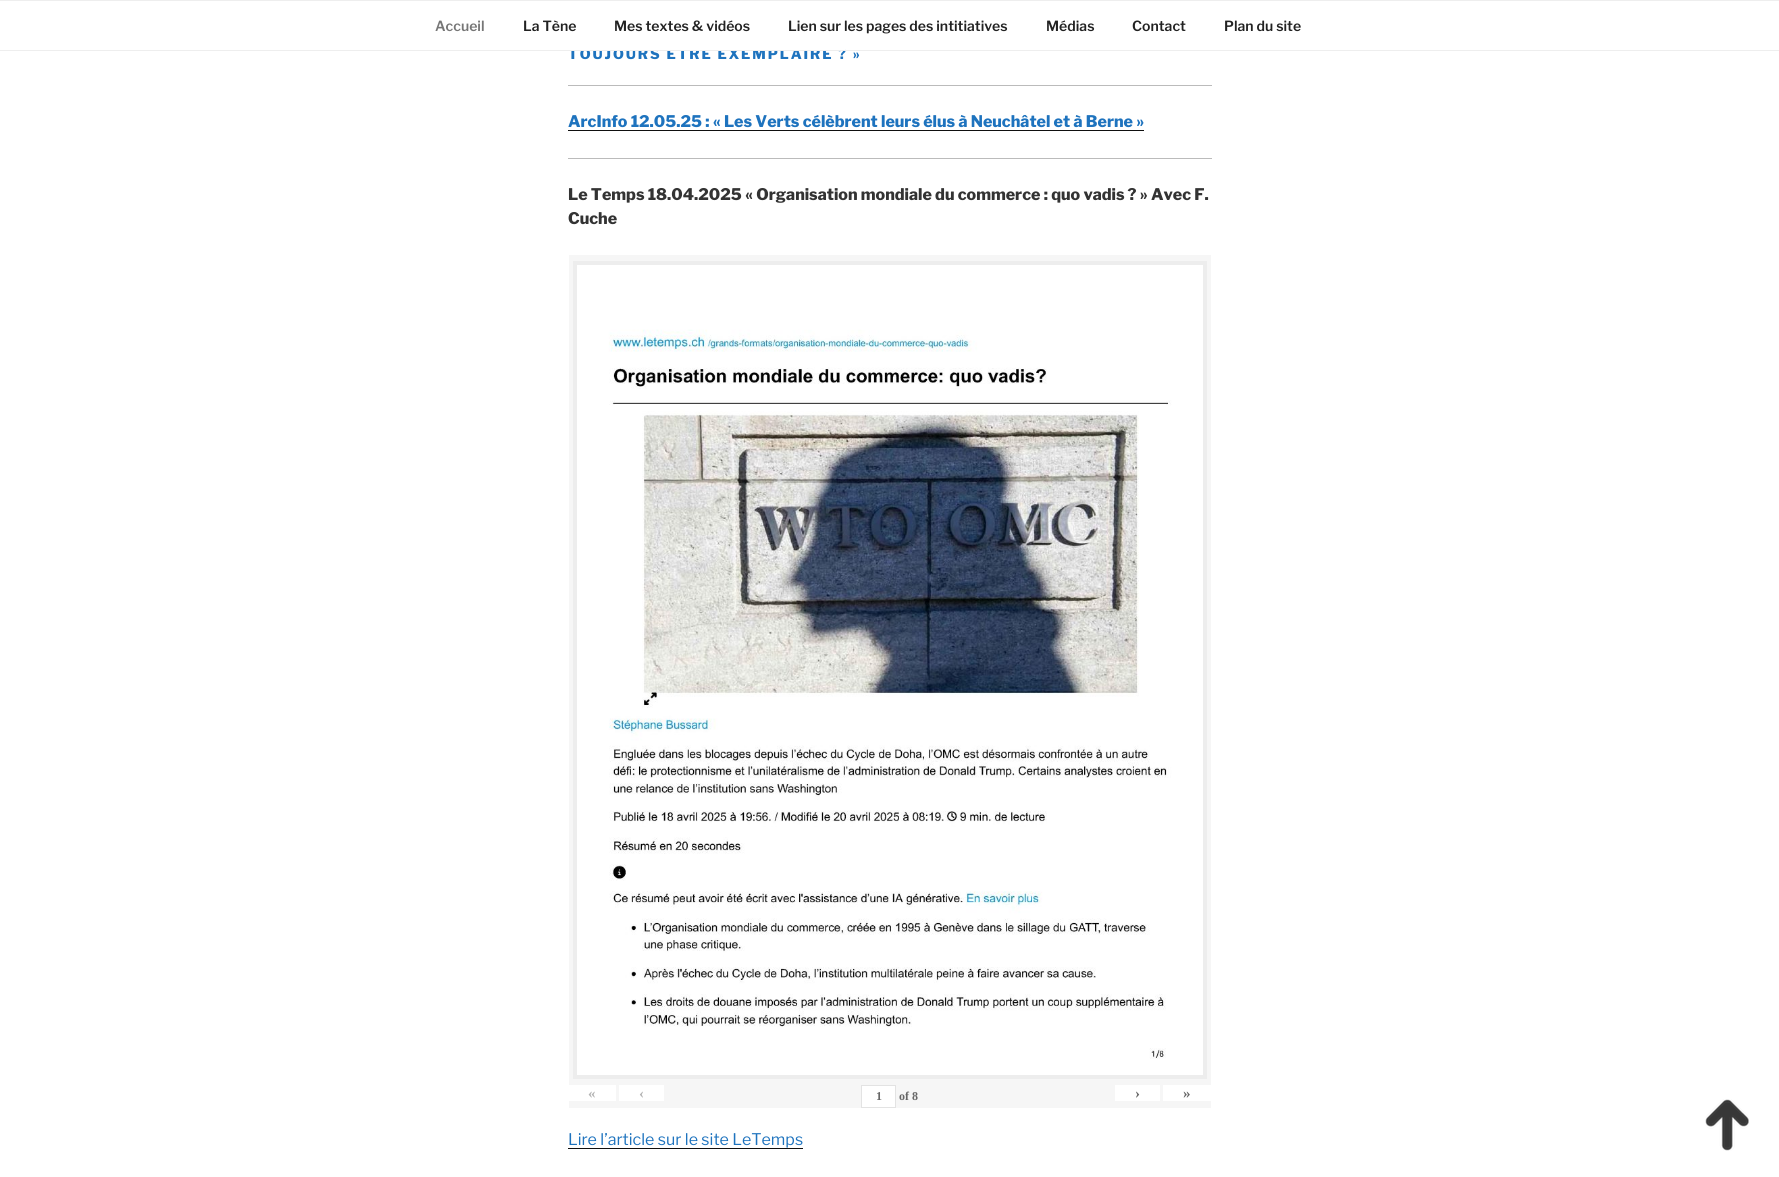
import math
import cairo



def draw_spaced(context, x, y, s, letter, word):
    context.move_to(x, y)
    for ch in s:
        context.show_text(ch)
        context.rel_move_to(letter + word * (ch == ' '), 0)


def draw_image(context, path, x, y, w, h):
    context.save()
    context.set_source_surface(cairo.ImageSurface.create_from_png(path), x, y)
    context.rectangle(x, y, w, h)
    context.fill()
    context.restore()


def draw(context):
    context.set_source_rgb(1, 1, 1)
    context.paint()
    context.set_source_rgb(238 / 255, 238 / 255, 238 / 255)
    context.rectangle(0, 0, 1779, 1)
    context.fill()
    context.set_source_rgb(187 / 255, 187 / 255, 187 / 255)
    context.rectangle(568, 85, 644, 1)
    context.fill()
    context.set_source_rgb(15 / 255, 15 / 255, 15 / 255)
    context.rectangle(568, 130, 576, 1)
    context.fill()
    context.set_source_rgb(187 / 255, 187 / 255, 187 / 255)
    context.rectangle(568, 158, 644, 1)
    context.fill()
    context.set_source_rgb(246 / 255, 246 / 255, 246 / 255)
    context.rectangle(569, 255, 642, 853)
    context.fill()
    context.set_source_rgb(237 / 255, 237 / 255, 237 / 255)
    context.rectangle(573, 261, 634, 818)
    context.fill()
    draw_image(context, "images/1.png", 577, 265, 626, 810)
    context.set_source_rgb(1, 1, 1)
    context.rectangle(569, 1085, 47, 16)
    context.fill()
    context.rectangle(619, 1085, 45, 16)
    context.fill()
    context.rectangle(861.5, 1085.5, 34, 22)
    context.fill_preserve()
    context.set_source_rgb(227 / 255, 227 / 255, 227 / 255)
    context.set_line_width(1)
    context.stroke()
    context.set_source_rgb(1, 1, 1)
    context.rectangle(1115, 1085, 45, 16)
    context.fill()
    context.rectangle(1163, 1085, 48, 16)
    context.fill()
    context.set_source_rgb(15 / 255, 15 / 255, 15 / 255)
    context.rectangle(568, 1148, 235, 1)
    context.fill()
    draw_image(context, "images/2.png", 1705, 1099, 44, 52)
    context.select_font_face("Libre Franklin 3 Thin")
    context.set_font_size(14)
    context.set_source_rgb(118 / 255, 118 / 255, 118 / 255)
    context.move_to(435, 31)
    context.show_text("Accueil")
    context.set_source_rgb(34 / 255, 34 / 255, 34 / 255)
    context.move_to(523, 31)
    context.show_text("La Tène")
    context.move_to(614, 31)
    context.show_text("Mes textes & vidéos")
    context.move_to(788, 31)
    context.show_text("Lien sur les pages des intitiatives")
    context.move_to(1046, 31)
    context.show_text("Médias")
    context.move_to(1132, 31)
    context.show_text("Contact")
    context.move_to(1224, 31)
    context.show_text("Plan du site")
    context.select_font_face("Libre Franklin Thin")
    context.set_source_rgb(30 / 255, 115 / 255, 190 / 255)
    draw_spaced(context, 568, 59, "TOUJOURS ÊTRE EXEMPLAIRE ? »", 1.95, 0)
    context.set_source_rgb(238 / 255, 238 / 255, 238 / 255)
    context.rectangle(0, 50, 1779, 1)
    context.fill()
    context.set_source_rgb(1, 1, 1)
    context.rectangle(567, 45, 278, 5)
    context.fill()
    context.set_font_size(16)
    context.set_source_rgb(30 / 255, 115 / 255, 190 / 255)
    context.move_to(568, 127)
    context.show_text("ArcInfo 12.05.25 : « Les Verts célèbrent leurs élus à Neuchâtel et à Berne »")
    context.set_source_rgb(51 / 255, 51 / 255, 51 / 255)
    context.move_to(568, 200)
    context.show_text("Le Temps 18.04.2025 « Organisation mondiale du commerce : quo vadis ? » Avec F.")
    context.move_to(568, 224)
    context.show_text("Cuche")
    context.select_font_face("Liberation Serif", cairo.FontSlant.NORMAL, cairo.FontWeight.BOLD)
    context.set_font_size(15)
    context.set_source_rgb(179 / 255, 179 / 255, 179 / 255)
    context.move_to(588, 1098)
    context.show_text("«")
    context.move_to(639, 1098)
    context.show_text("‹")
    context.set_font_size(12)
    context.set_source_rgb(102 / 255, 102 / 255, 102 / 255)
    context.move_to(876, 1100)
    context.show_text("1")
    context.move_to(899, 1100)
    context.show_text("of 8")
    context.set_font_size(15)
    context.move_to(1135, 1098)
    context.show_text("›")
    context.move_to(1183, 1098)
    context.show_text("»")
    context.select_font_face("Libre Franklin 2 Thin")
    context.set_font_size(16)
    context.set_source_rgb(30 / 255, 115 / 255, 190 / 255)
    context.move_to(568, 1145)
    context.show_text("Lire l’article sur le site LeTemps")


surface = cairo.ImageSurface(cairo.Format.RGB24, 1779, 1177)
context = cairo.Context(surface)
options = cairo.FontOptions()
options.set_hint_metrics(cairo.HintMetrics.OFF)
options.set_hint_style(cairo.HintStyle.NONE)
context.set_font_options(options)
context.set_miter_limit(4)
draw(context)
surface.write_to_png("out.png")
